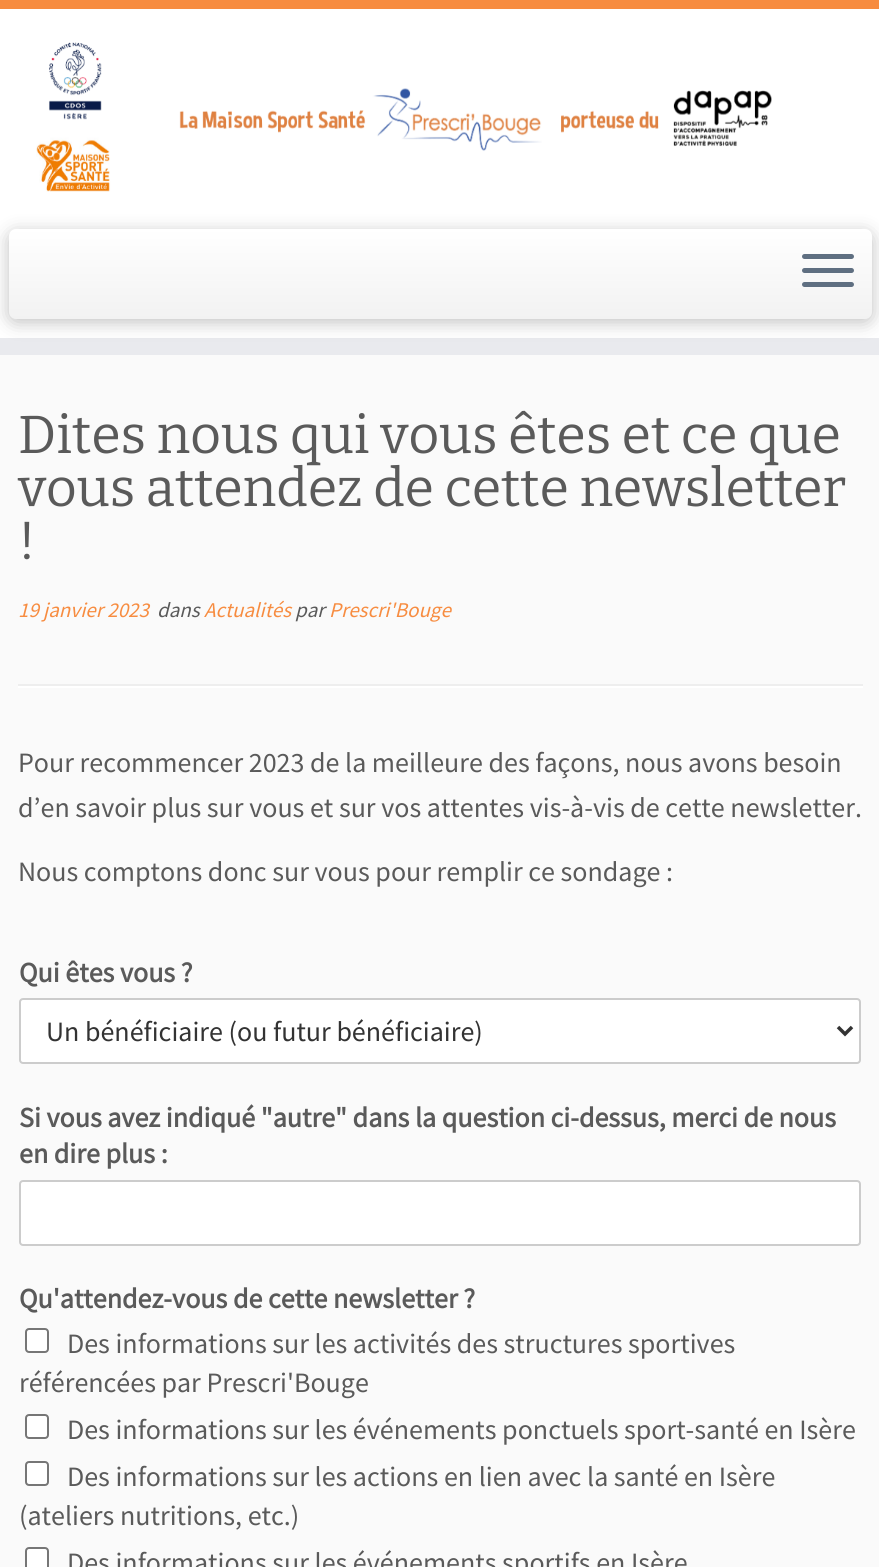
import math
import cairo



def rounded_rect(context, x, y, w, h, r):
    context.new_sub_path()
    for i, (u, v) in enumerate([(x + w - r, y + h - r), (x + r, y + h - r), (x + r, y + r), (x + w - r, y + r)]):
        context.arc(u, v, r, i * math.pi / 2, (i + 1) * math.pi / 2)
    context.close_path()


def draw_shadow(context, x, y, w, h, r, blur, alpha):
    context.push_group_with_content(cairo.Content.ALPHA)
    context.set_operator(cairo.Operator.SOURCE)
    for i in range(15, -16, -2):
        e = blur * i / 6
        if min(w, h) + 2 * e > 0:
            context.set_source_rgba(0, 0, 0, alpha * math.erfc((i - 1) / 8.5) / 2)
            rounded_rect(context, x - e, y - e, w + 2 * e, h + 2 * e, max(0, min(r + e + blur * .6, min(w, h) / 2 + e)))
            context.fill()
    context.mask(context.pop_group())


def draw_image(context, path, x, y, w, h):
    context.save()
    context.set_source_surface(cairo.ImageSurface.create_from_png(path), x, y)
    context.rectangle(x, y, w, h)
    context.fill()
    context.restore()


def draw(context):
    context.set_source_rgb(250 / 255, 250 / 255, 250 / 255)
    context.paint()
    context.set_source_rgb(1, 1, 1)
    context.rectangle(0, 9, 879, 329)
    context.fill()
    context.set_source_rgb(247 / 255, 140 / 255, 64 / 255)
    context.rectangle(0, 0, 879, 9)
    context.fill()
    context.set_source_rgb(233 / 255, 234 / 255, 238 / 255)
    context.rectangle(0, 338, 879, 17)
    context.fill()
    draw_image(context, "images/1.png", 36, 42, 736, 150)
    context.set_source_rgb(0, 0, 0)
    draw_shadow(context, 9, 233, 863, 89, 7, 9, 0.25)
    gradient = cairo.LinearGradient(440, 229, 440, 319)
    gradient.add_color_stop_rgba(0, 1, 1, 1, 1)
    gradient.add_color_stop_rgba(1, 242 / 255, 242 / 255, 242 / 255, 1)
    context.set_source(gradient)
    rounded_rect(context, 9, 229, 863, 90, 7)
    context.fill()
    context.set_source_rgb(95 / 255, 111 / 255, 129 / 255)
    rounded_rect(context, 802, 254, 52, 5, 2.5)
    context.fill()
    rounded_rect(context, 802, 268, 52, 5, 2.5)
    context.fill()
    rounded_rect(context, 802, 282, 52, 5, 2.5)
    context.fill()
    context.set_source_rgb(238 / 255, 238 / 255, 238 / 255)
    context.rectangle(18, 684, 845, 2)
    context.fill()
    context.set_source_rgb(1, 1, 1)
    context.rectangle(18, 686, 845, 2)
    context.fill()
    rounded_rect(context, 20, 999, 840, 64, 3)
    context.fill_preserve()
    context.set_source_rgb(204 / 255, 204 / 255, 204 / 255)
    context.stroke()
    context.new_path()
    context.move_to(838, 1027)
    context.line_to(845, 1034)
    context.line_to(852, 1027)
    context.set_source_rgb(51 / 255, 51 / 255, 51 / 255)
    context.set_line_width(3.5)
    context.stroke()
    context.set_source_rgb(1, 1, 1)
    rounded_rect(context, 20, 1181, 840, 64, 3)
    context.fill_preserve()
    context.set_source_rgb(204 / 255, 204 / 255, 204 / 255)
    context.set_line_width(2)
    context.stroke()
    context.set_source_rgb(1, 1, 1)
    rounded_rect(context, 26, 1329, 22, 23, 3)
    context.fill_preserve()
    context.set_source_rgb(118 / 255, 118 / 255, 118 / 255)
    context.stroke()
    context.set_source_rgb(1, 1, 1)
    rounded_rect(context, 26, 1415, 22, 23, 3)
    context.fill_preserve()
    context.set_source_rgb(118 / 255, 118 / 255, 118 / 255)
    context.stroke()
    context.set_source_rgb(1, 1, 1)
    rounded_rect(context, 26, 1462, 22, 23, 3)
    context.fill_preserve()
    context.set_source_rgb(118 / 255, 118 / 255, 118 / 255)
    context.stroke()
    context.set_source_rgb(1, 1, 1)
    rounded_rect(context, 26, 1548, 22, 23, 3)
    context.fill_preserve()
    context.set_source_rgb(118 / 255, 118 / 255, 118 / 255)
    context.stroke()
    context.select_font_face("Bitter Thin")
    context.set_font_size(53.25)
    context.set_source_rgb(90 / 255, 90 / 255, 90 / 255)
    context.move_to(18, 453)
    context.show_text("Dites nous qui vous êtes et ce que")
    context.move_to(18, 506)
    context.show_text("vous attendez de cette newsletter")
    context.move_to(18, 559)
    context.show_text("!")
    context.select_font_face("Source Sans Pro", cairo.FontSlant.ITALIC)
    context.set_font_size(21)
    context.set_source_rgb(247 / 255, 140 / 255, 64 / 255)
    context.move_to(18, 617)
    context.show_text("19 janvier 2023")
    context.set_source_rgb(90 / 255, 90 / 255, 90 / 255)
    context.move_to(157, 617)
    context.show_text("dans")
    context.set_source_rgb(247 / 255, 140 / 255, 64 / 255)
    context.move_to(204, 617)
    context.show_text("Actualités")
    context.set_source_rgb(90 / 255, 90 / 255, 90 / 255)
    context.move_to(295, 617)
    context.show_text("par")
    context.set_source_rgb(247 / 255, 140 / 255, 64 / 255)
    context.move_to(329, 617)
    context.show_text("Prescri'Bouge")
    context.select_font_face("Source Sans Pro")
    context.set_font_size(28)
    context.set_source_rgb(90 / 255, 90 / 255, 90 / 255)
    context.move_to(18, 772)
    context.show_text("Pour recommencer 2023 de la meilleure des façons, nous avons besoin")
    context.move_to(18, 817)
    context.show_text("d’en savoir plus sur vous et sur vos attentes vis-à-vis de cette newsletter.")
    context.move_to(18, 881)
    context.show_text("Nous comptons donc sur vous pour remplir ce sondage :")
    context.select_font_face("Source Sans Pro", cairo.FontSlant.NORMAL, cairo.FontWeight.BOLD)
    context.move_to(19, 982)
    context.show_text("Qui êtes vous ?")
    context.select_font_face("Source Sans Pro")
    context.set_source_rgb(51 / 255, 51 / 255, 51 / 255)
    context.move_to(46, 1041)
    context.show_text("Un bénéficiaire (ou futur bénéficiaire)")
    context.select_font_face("Source Sans Pro", cairo.FontSlant.NORMAL, cairo.FontWeight.BOLD)
    context.set_source_rgb(90 / 255, 90 / 255, 90 / 255)
    context.move_to(19, 1127)
    context.show_text("Si vous avez indiqué \"autre\" dans la question ci-dessus, merci de nous")
    context.move_to(19, 1163)
    context.show_text("en dire plus :")
    context.move_to(19, 1308)
    context.show_text("Qu'attendez-vous de cette newsletter ?")
    context.select_font_face("Source Sans Pro")
    context.move_to(67, 1353)
    context.show_text("Des informations sur les activités des structures sportives")
    context.move_to(19, 1392)
    context.show_text("référencées par Prescri'Bouge")
    context.move_to(67, 1439)
    context.show_text("Des informations sur les événements ponctuels sport-santé en Isère")
    context.move_to(67, 1486)
    context.show_text("Des informations sur les actions en lien avec la santé en Isère")
    context.move_to(19, 1525)
    context.show_text("(ateliers nutritions, etc.)")
    context.move_to(67, 1572)
    context.show_text("Des informations sur les événements sportifs en Isère")


surface = cairo.ImageSurface(cairo.Format.RGB24, 879, 1567)
context = cairo.Context(surface)
options = cairo.FontOptions()
options.set_hint_metrics(cairo.HintMetrics.OFF)
options.set_hint_style(cairo.HintStyle.NONE)
context.set_font_options(options)
context.set_miter_limit(4)
draw(context)
surface.write_to_png("out.png")
